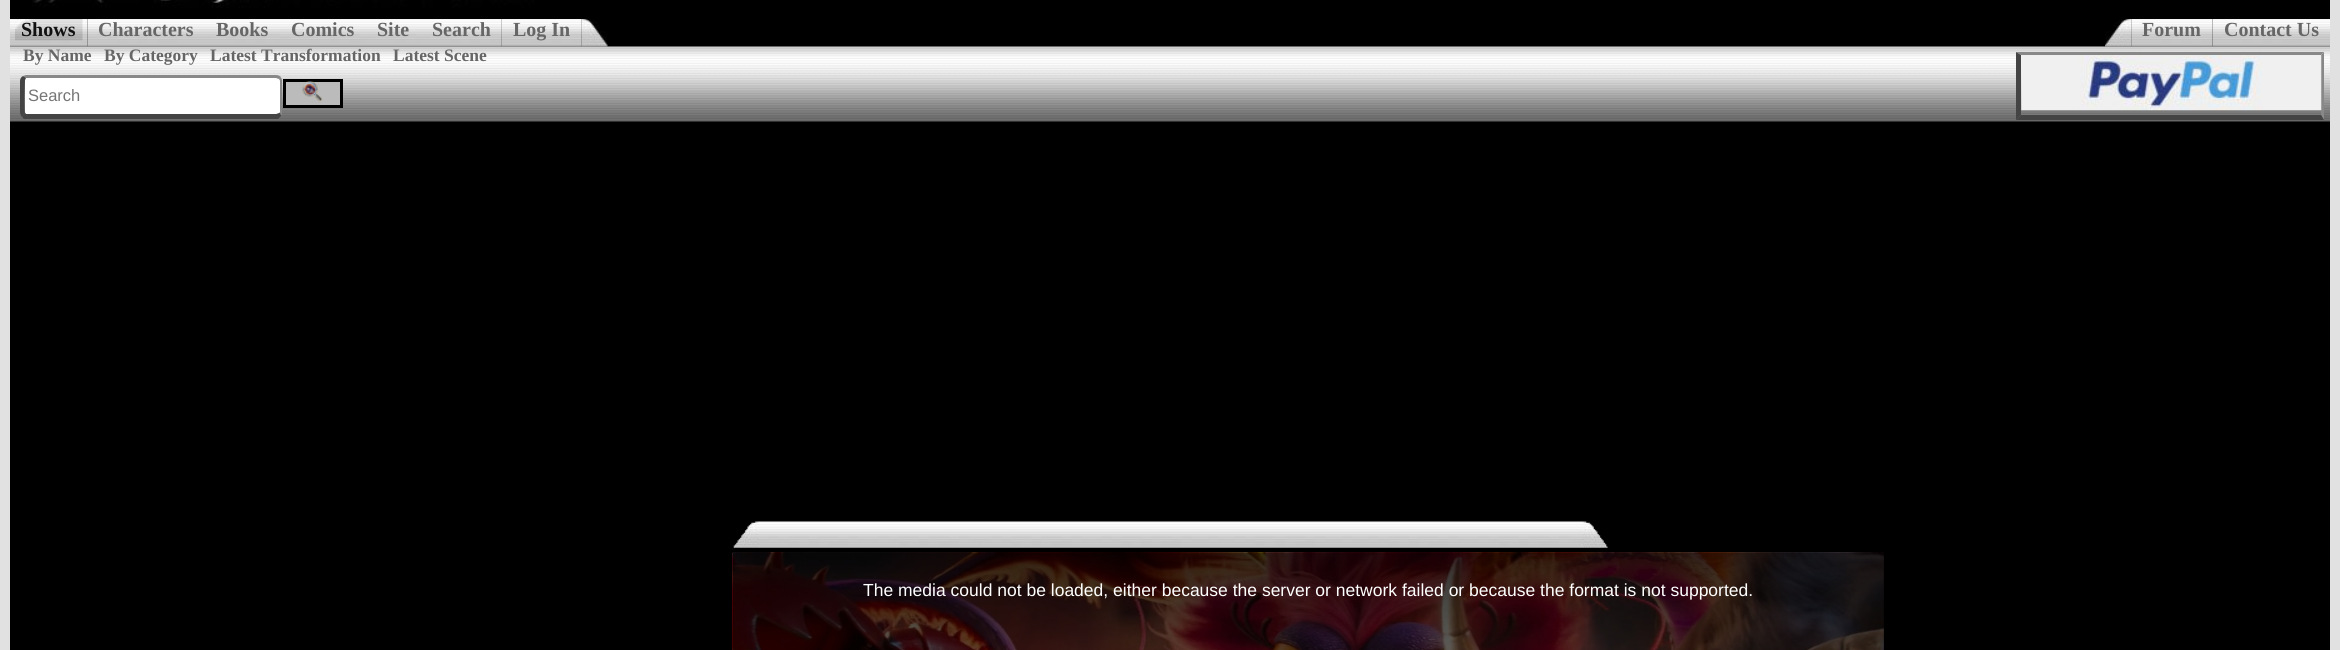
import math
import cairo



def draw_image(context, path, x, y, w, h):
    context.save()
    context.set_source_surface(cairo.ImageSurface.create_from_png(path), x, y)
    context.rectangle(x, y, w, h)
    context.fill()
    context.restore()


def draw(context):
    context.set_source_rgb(225 / 255, 225 / 255, 225 / 255)
    context.paint()
    context.set_source_rgb(0, 0, 0)
    context.rectangle(10, 0, 2320, 650)
    context.fill()
    draw_image(context, "images/1.png", 32, 0, 502, 8)
    draw_image(context, "images/2.png", 10, 19, 78, 28)
    draw_image(context, "images/3.png", 15, 19, 68, 22)
    draw_image(context, "images/4.png", 87, 19, 118, 28)
    draw_image(context, "images/5.png", 205, 19, 75, 28)
    draw_image(context, "images/6.png", 280, 19, 85, 28)
    draw_image(context, "images/7.png", 365, 19, 55, 28)
    draw_image(context, "images/8.png", 420, 19, 82, 28)
    draw_image(context, "images/9.png", 501, 19, 81, 28)
    draw_image(context, "images/10.png", 581, 19, 27, 28)
    draw_image(context, "images/11.png", 2105, 19, 27, 28)
    draw_image(context, "images/12.png", 2131, 19, 82, 28)
    draw_image(context, "images/13.png", 2212, 19, 118, 28)
    draw_image(context, "images/14.png", 10, 46, 2320, 76)
    context.set_source_rgb(136 / 255, 136 / 255, 136 / 255)
    context.new_path()
    context.move_to(2016, 52)
    context.line_to(2324, 52)
    context.line_to(2321, 55)
    context.line_to(2021, 55)
    context.close_path()
    context.fill()
    context.new_path()
    context.move_to(2324, 52)
    context.line_to(2324, 120)
    context.line_to(2321, 115)
    context.line_to(2321, 55)
    context.close_path()
    context.fill()
    context.set_source_rgb(68 / 255, 68 / 255, 68 / 255)
    context.new_path()
    context.move_to(2324, 120)
    context.line_to(2016, 120)
    context.line_to(2021, 115)
    context.line_to(2321, 115)
    context.close_path()
    context.fill()
    context.new_path()
    context.move_to(2016, 120)
    context.line_to(2016, 52)
    context.line_to(2021, 55)
    context.line_to(2021, 115)
    context.close_path()
    context.fill()
    draw_image(context, "images/15.png", 2021, 55, 301, 56)
    context.set_source_rgb(1, 1, 1)
    context.new_path()
    context.move_to(26, 78)
    context.line_to(276, 78)
    context.curve_to(278, 78, 280, 79, 280, 81)
    context.line_to(280, 112)
    context.curve_to(280, 113, 278, 114, 276, 114)
    context.line_to(26, 114)
    context.curve_to(26, 114, 25, 113, 25, 112)
    context.line_to(25, 81)
    context.curve_to(25, 79, 26, 78, 26, 78)
    context.close_path()
    context.fill()
    context.set_source_rgb(136 / 255, 136 / 255, 136 / 255)
    context.new_path()
    context.move_to(26, 75)
    context.line_to(23, 76)
    context.line_to(26, 78)
    context.line_to(276, 78)
    context.line_to(279, 79)
    context.line_to(281, 77)
    context.curve_to(280, 76, 278, 75, 276, 75)
    context.close_path()
    context.fill()
    context.new_path()
    context.move_to(280.5, 77)
    context.curve_to(281.5, 78, 282, 79.5, 282, 81)
    context.line_to(282, 112)
    context.curve_to(282, 113.5, 281.5, 115, 281, 116)
    context.line_to(279.5, 113)
    context.line_to(280, 112)
    context.line_to(280, 80.5)
    context.line_to(279, 79)
    context.close_path()
    context.fill()
    context.set_source_rgb(68 / 255, 68 / 255, 68 / 255)
    context.new_path()
    context.move_to(24, 119)
    context.line_to(22, 117)
    context.line_to(25, 113)
    context.line_to(26, 114)
    context.line_to(276, 114)
    context.curve_to(277, 114, 279, 113, 280, 113)
    context.line_to(281, 116)
    context.line_to(278, 119)
    context.close_path()
    context.fill()
    context.new_path()
    context.move_to(26, 78)
    context.line_to(23, 76)
    context.curve_to(21, 77, 20, 79, 20, 81)
    context.line_to(20, 112)
    context.curve_to(20, 114, 21, 116, 22, 117)
    context.line_to(25, 113)
    context.curve_to(24, 112, 25, 84, 25, 80)
    context.close_path()
    context.fill()
    context.set_source_rgb(187 / 255, 187 / 255, 187 / 255)
    context.rectangle(284.5, 80.5, 57, 26)
    context.fill_preserve()
    context.set_source_rgb(0, 0, 0)
    context.set_line_width(3)
    context.stroke()
    draw_image(context, "images/16.png", 302, 81, 21, 21)
    draw_image(context, "images/17.png", 733, 521, 875, 27)
    draw_image(context, "images/18.png", 732, 552, 1152, 98)
    draw_image(context, "images/19.png", 732, 552, 1152, 98)
    gradient = cairo.LinearGradient(1308, 552, 1308, 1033)
    gradient.add_color_stop_rgba(0, 0, 0, 0, 0.8)
    gradient.add_color_stop_rgba(1, 0, 0, 0, 0)
    context.set_source(gradient)
    context.rectangle(733, 553, 1151, 97)
    context.fill()
    context.select_font_face("Liberation Serif", cairo.FontSlant.NORMAL, cairo.FontWeight.BOLD)
    context.set_font_size(20)
    context.set_source_rgb(17 / 255, 17 / 255, 17 / 255)
    context.move_to(21, 36)
    context.show_text("Shows")
    context.set_source_rgb(102 / 255, 102 / 255, 102 / 255)
    context.move_to(98, 36)
    context.show_text("Characters")
    context.move_to(216, 36)
    context.show_text("Books")
    context.move_to(291, 36)
    context.show_text("Comics")
    context.move_to(377, 36)
    context.show_text("Site")
    context.move_to(432, 36)
    context.show_text("Search")
    context.move_to(513, 36)
    context.show_text("Log In")
    context.move_to(2142, 36)
    context.show_text("Forum")
    context.move_to(2224, 36)
    context.show_text("Contact Us")
    context.set_font_size(17.5)
    context.move_to(23, 61)
    context.show_text("By Name")
    context.move_to(104, 61)
    context.show_text("By Category")
    context.move_to(210, 61)
    context.show_text("Latest Transformation")
    context.move_to(393, 61)
    context.show_text("Latest Scene")
    context.select_font_face("Liberation Sans")
    context.set_font_size(16.5)
    context.set_source_rgb(117 / 255, 117 / 255, 117 / 255)
    context.move_to(28, 101)
    context.show_text("Search")
    context.set_font_size(17.5)
    context.set_source_rgb(1, 1, 1)
    context.move_to(863, 596)
    context.show_text("The media could not be loaded, either because the server or network failed or because the format is not supported.")


surface = cairo.ImageSurface(cairo.Format.RGB24, 2340, 650)
context = cairo.Context(surface)
options = cairo.FontOptions()
options.set_hint_metrics(cairo.HintMetrics.OFF)
options.set_hint_style(cairo.HintStyle.NONE)
context.set_font_options(options)
context.set_miter_limit(4)
draw(context)
surface.write_to_png("out.png")
